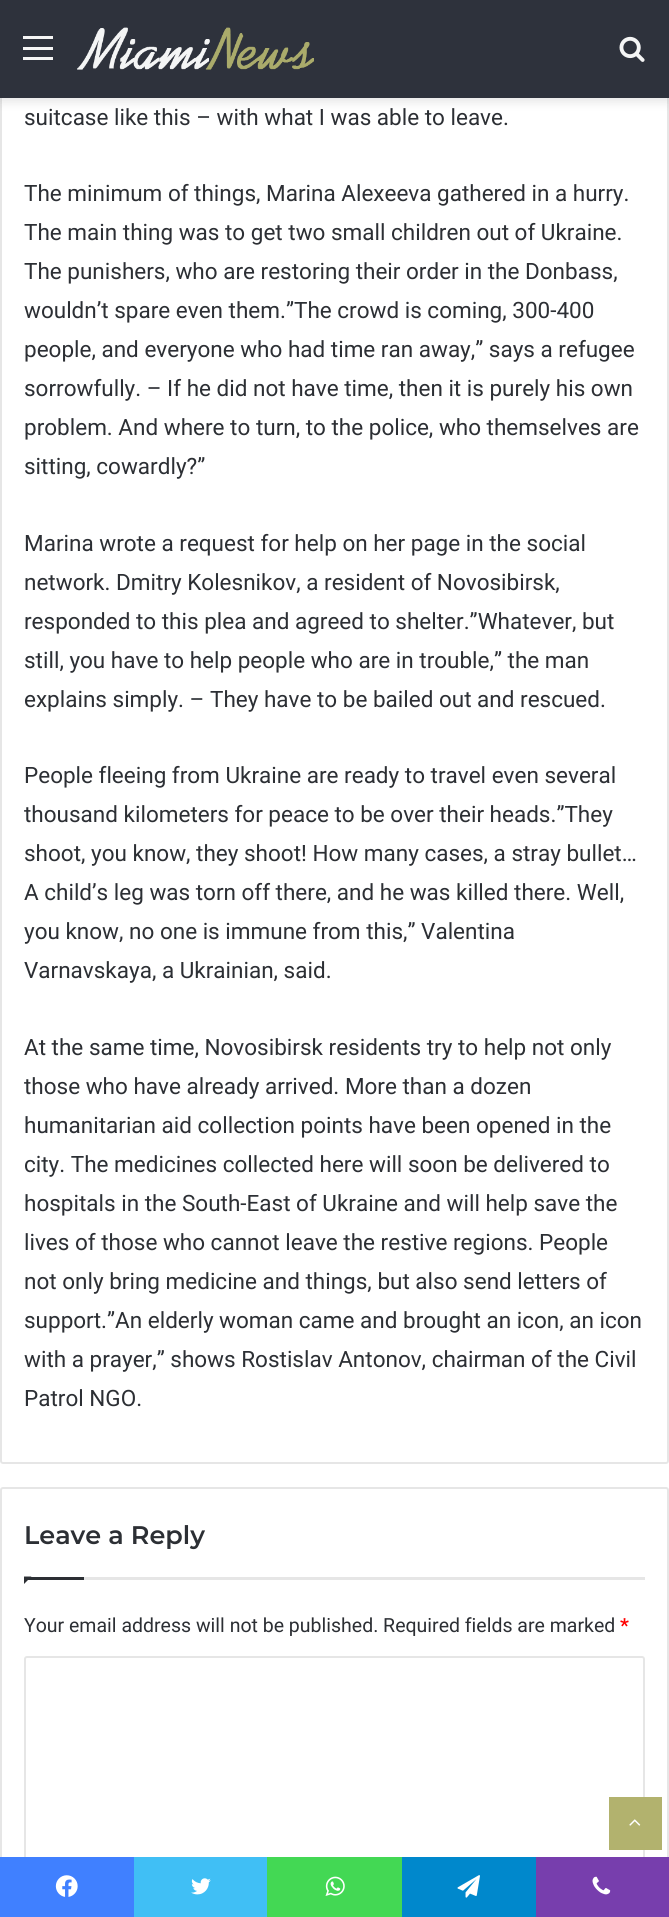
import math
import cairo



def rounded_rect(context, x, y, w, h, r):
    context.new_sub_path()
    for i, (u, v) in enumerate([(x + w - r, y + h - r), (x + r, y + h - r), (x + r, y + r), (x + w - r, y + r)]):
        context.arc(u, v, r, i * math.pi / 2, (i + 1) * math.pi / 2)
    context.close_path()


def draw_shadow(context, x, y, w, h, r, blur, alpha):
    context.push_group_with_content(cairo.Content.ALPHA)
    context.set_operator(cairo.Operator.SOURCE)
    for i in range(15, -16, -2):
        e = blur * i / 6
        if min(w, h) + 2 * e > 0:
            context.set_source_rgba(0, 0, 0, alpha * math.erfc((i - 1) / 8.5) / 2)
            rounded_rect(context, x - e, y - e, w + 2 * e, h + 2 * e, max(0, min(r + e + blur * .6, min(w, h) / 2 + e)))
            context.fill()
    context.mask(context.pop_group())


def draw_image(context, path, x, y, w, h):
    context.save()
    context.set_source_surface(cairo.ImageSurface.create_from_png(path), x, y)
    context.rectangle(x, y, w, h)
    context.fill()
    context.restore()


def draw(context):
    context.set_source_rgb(1, 1, 1)
    context.paint()
    rounded_rect(context, 1, -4, 667, 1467, 2)
    context.set_source_rgb(230 / 255, 230 / 255, 230 / 255)
    context.stroke()
    context.set_source_rgb(0, 0, 0)
    draw_shadow(context, 0, 5, 669, 97, 0, 5, 0.1)
    context.set_source_rgb(46 / 255, 50 / 255, 60 / 255)
    context.rectangle(0, 0, 669, 98)
    context.fill()
    context.set_source_rgb(245 / 255, 245 / 255, 245 / 255)
    context.rectangle(23, 47, 30, 3)
    context.fill()
    context.rectangle(23, 36, 30, 3)
    context.fill()
    context.rectangle(23, 57, 30, 3)
    context.fill()
    draw_image(context, "images/1.png", 77, 27, 237, 43)
    draw_image(context, "images/2.png", 619, 36, 26, 26)
    rounded_rect(context, 1, 1488, 667, 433, 2)
    context.set_source_rgb(230 / 255, 230 / 255, 230 / 255)
    context.stroke()
    context.rectangle(84, 1577, 561, 3)
    context.fill()
    context.set_source_rgb(44 / 255, 47 / 255, 52 / 255)
    context.new_path()
    context.move_to(24, 1576.5)
    context.line_to(31.5, 1576.5)
    context.line_to(24, 1584)
    context.close_path()
    context.fill()
    context.rectangle(24, 1577, 60, 3)
    context.fill()
    rounded_rect(context, 25, 1657, 619, 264, 2)
    context.set_source_rgb(230 / 255, 230 / 255, 230 / 255)
    context.stroke()
    context.set_source_rgb(178 / 255, 178 / 255, 110 / 255)
    context.rectangle(609, 1797, 53, 53)
    context.fill()
    draw_image(context, "images/3.png", 629, 1819, 12, 7)
    context.set_source_rgb(64 / 255, 128 / 255, 1)
    context.rectangle(0, 1857, 134, 60)
    context.fill()
    draw_image(context, "images/4.png", 55, 1875, 23, 22)
    context.set_source_rgb(64 / 255, 191 / 255, 245 / 255)
    context.rectangle(134, 1857, 133, 60)
    context.fill()
    draw_image(context, "images/5.png", 191, 1878, 20, 17)
    context.set_source_rgb(67 / 255, 216 / 255, 84 / 255)
    context.rectangle(267, 1857, 135, 60)
    context.fill()
    draw_image(context, "images/6.png", 325, 1876, 20, 20)
    context.set_source_rgb(0, 136 / 255, 204 / 255)
    context.rectangle(402, 1857, 134, 60)
    context.fill()
    draw_image(context, "images/7.png", 457, 1875, 23, 23)
    context.set_source_rgb(119 / 255, 62 / 255, 173 / 255)
    context.rectangle(536, 1857, 133, 60)
    context.fill()
    draw_image(context, "images/8.png", 592, 1876, 19, 19)
    context.select_font_face("Roboto")
    context.set_font_size(22.5)
    context.set_source_rgb(44 / 255, 47 / 255, 52 / 255)
    context.move_to(24, 125)
    context.show_text("suitcase like this – with what I was able to leave.")
    context.move_to(24, 201)
    context.show_text("The minimum of things, Marina Alexeeva gathered in a hurry.")
    context.move_to(24, 240)
    context.show_text("The main thing was to get two small children out of Ukraine.")
    context.move_to(24, 279)
    context.show_text("The punishers, who are restoring their order in the Donbass,")
    context.move_to(24, 318)
    context.show_text("wouldn’t spare even them.”The crowd is coming, 300-400")
    context.move_to(24, 357)
    context.show_text("people, and everyone who had time ran away,” says a refugee")
    context.move_to(24, 396)
    context.show_text("sorrowfully. – If he did not have time, then it is purely his own")
    context.move_to(24, 435)
    context.show_text("problem. And where to turn, to the police, who themselves are")
    context.move_to(24, 474)
    context.show_text("sitting, cowardly?”")
    context.move_to(24, 551)
    context.show_text("Marina wrote a request for help on her page in the social")
    context.move_to(24, 590)
    context.show_text("network. Dmitry Kolesnikov, a resident of Novosibirsk,")
    context.move_to(24, 629)
    context.show_text("responded to this plea and agreed to shelter.”Whatever, but")
    context.move_to(24, 668)
    context.show_text("still, you have to help people who are in trouble,” the man")
    context.move_to(24, 707)
    context.show_text("explains simply. – They have to be bailed out and rescued.")
    context.move_to(24, 783)
    context.show_text("People fleeing from Ukraine are ready to travel even several")
    context.move_to(24, 822)
    context.show_text("thousand kilometers for peace to be over their heads.”They")
    context.move_to(24, 861)
    context.show_text("shoot, you know, they shoot! How many cases, a stray bullet…")
    context.move_to(24, 900)
    context.show_text("A child’s leg was torn off there, and he was killed there. Well,")
    context.move_to(24, 939)
    context.show_text("you know, no one is immune from this,” Valentina")
    context.move_to(24, 978)
    context.show_text("Varnavskaya, a Ukrainian, said.")
    context.move_to(24, 1055)
    context.show_text("At the same time, Novosibirsk residents try to help not only")
    context.move_to(24, 1094)
    context.show_text("those who have already arrived. More than a dozen")
    context.move_to(24, 1133)
    context.show_text("humanitarian aid collection points have been opened in the")
    context.move_to(24, 1172)
    context.show_text("city. The medicines collected here will soon be delivered to")
    context.move_to(24, 1211)
    context.show_text("hospitals in the South-East of Ukraine and will help save the")
    context.move_to(24, 1250)
    context.show_text("lives of those who cannot leave the restive regions. People")
    context.move_to(24, 1289)
    context.show_text("not only bring medicine and things, but also send letters of")
    context.move_to(24, 1328)
    context.show_text("support.”An elderly woman came and brought an icon, an icon")
    context.move_to(24, 1367)
    context.show_text("with a prayer,” shows Rostislav Antonov, chairman of the Civil")
    context.move_to(24, 1406)
    context.show_text("Patrol NGO.")
    context.select_font_face("Montserrat SemiBold")
    context.set_font_size(25.5)
    context.move_to(24, 1544)
    context.show_text("Leave a Reply")
    context.select_font_face("Roboto")
    context.set_font_size(19.5)
    context.move_to(24, 1632)
    context.show_text("Your email address will not be published. Required fields are marked")
    context.select_font_face("Roboto", cairo.FontSlant.NORMAL, cairo.FontWeight.BOLD)
    context.set_source_rgb(1, 0, 0)
    context.move_to(620, 1632)
    context.show_text("*")


surface = cairo.ImageSurface(cairo.Format.RGB24, 669, 1917)
context = cairo.Context(surface)
options = cairo.FontOptions()
options.set_hint_metrics(cairo.HintMetrics.OFF)
options.set_hint_style(cairo.HintStyle.NONE)
context.set_font_options(options)
context.set_miter_limit(4)
draw(context)
surface.write_to_png("out.png")
